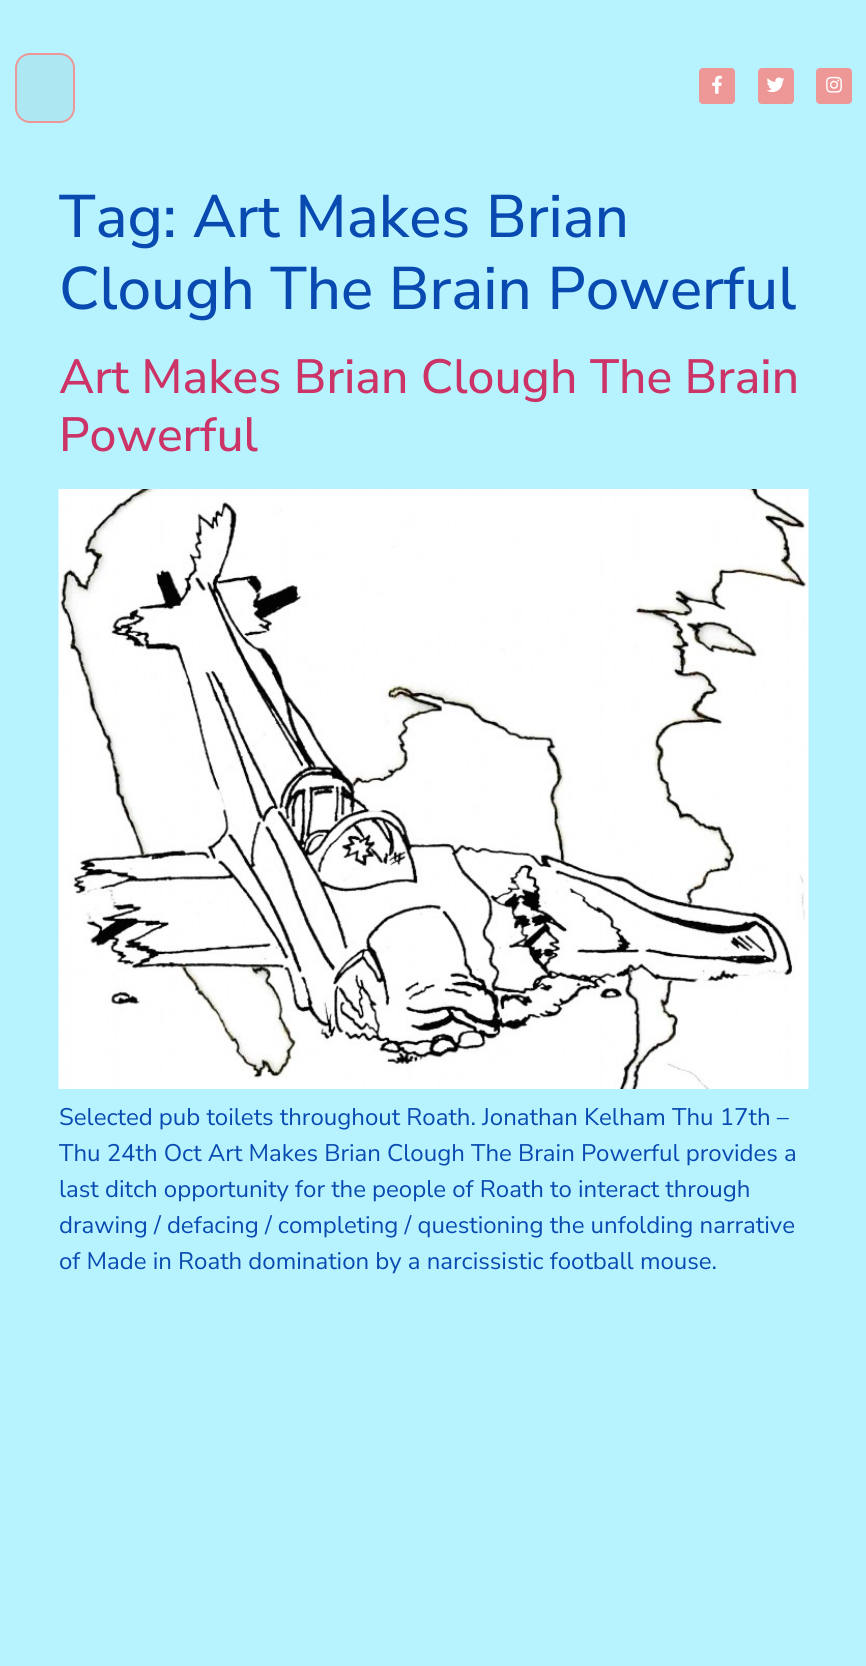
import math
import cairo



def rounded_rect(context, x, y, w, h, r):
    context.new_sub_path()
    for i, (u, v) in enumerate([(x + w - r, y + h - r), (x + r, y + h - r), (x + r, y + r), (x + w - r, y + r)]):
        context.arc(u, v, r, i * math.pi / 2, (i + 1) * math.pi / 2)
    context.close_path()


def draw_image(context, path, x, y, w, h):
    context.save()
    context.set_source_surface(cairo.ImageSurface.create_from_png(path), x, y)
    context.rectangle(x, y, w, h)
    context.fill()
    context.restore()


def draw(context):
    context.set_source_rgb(182 / 255, 243 / 255, 1)
    context.paint()
    context.set_source_rgb(173 / 255, 231 / 255, 242 / 255)
    rounded_rect(context, 16, 54, 58, 68, 14)
    context.fill_preserve()
    context.set_source_rgb(237 / 255, 151 / 255, 151 / 255)
    context.stroke()
    rounded_rect(context, 699, 68, 36, 36, 4)
    context.fill()
    draw_image(context, "images/1.png", 712, 75, 10, 19)
    rounded_rect(context, 758, 68, 36, 36, 4)
    context.fill()
    draw_image(context, "images/2.png", 766, 77, 19, 16)
    rounded_rect(context, 816, 68, 36, 36, 4)
    context.fill()
    draw_image(context, "images/3.png", 826, 76, 16, 17)
    draw_image(context, "images/4.png", 58, 489, 751, 600)
    context.select_font_face("Nunito Sans Medium")
    context.set_font_size(60)
    context.set_source_rgb(9 / 255, 74 / 255, 177 / 255)
    context.move_to(59, 237)
    context.show_text("Tag: Art Makes Brian")
    context.move_to(59, 309)
    context.show_text("Clough The Brain Powerful")
    context.set_font_size(48)
    context.set_source_rgb(204 / 255, 51 / 255, 102 / 255)
    context.move_to(59, 393)
    context.show_text("Art Makes Brian Clough The Brain")
    context.move_to(59, 451)
    context.show_text("Powerful")
    context.select_font_face("Nunito Sans")
    context.set_font_size(24)
    context.set_source_rgb(9 / 255, 74 / 255, 177 / 255)
    context.move_to(59, 1125)
    context.show_text("Selected pub toilets throughout Roath. Jonathan Kelham Thu 17th –")
    context.move_to(59, 1161)
    context.show_text("Thu 24th Oct Art Makes Brian Clough The Brain Powerful provides a")
    context.move_to(59, 1197)
    context.show_text("last ditch opportunity for the people of Roath to interact through")
    context.move_to(59, 1233)
    context.show_text("drawing / defacing / completing / questioning the unfolding narrative")
    context.move_to(59, 1269)
    context.show_text("of Made in Roath domination by a narcissistic football mouse.")


surface = cairo.ImageSurface(cairo.Format.RGB24, 866, 1666)
context = cairo.Context(surface)
options = cairo.FontOptions()
options.set_hint_metrics(cairo.HintMetrics.OFF)
options.set_hint_style(cairo.HintStyle.NONE)
context.set_font_options(options)
context.set_miter_limit(4)
draw(context)
surface.write_to_png("out.png")
